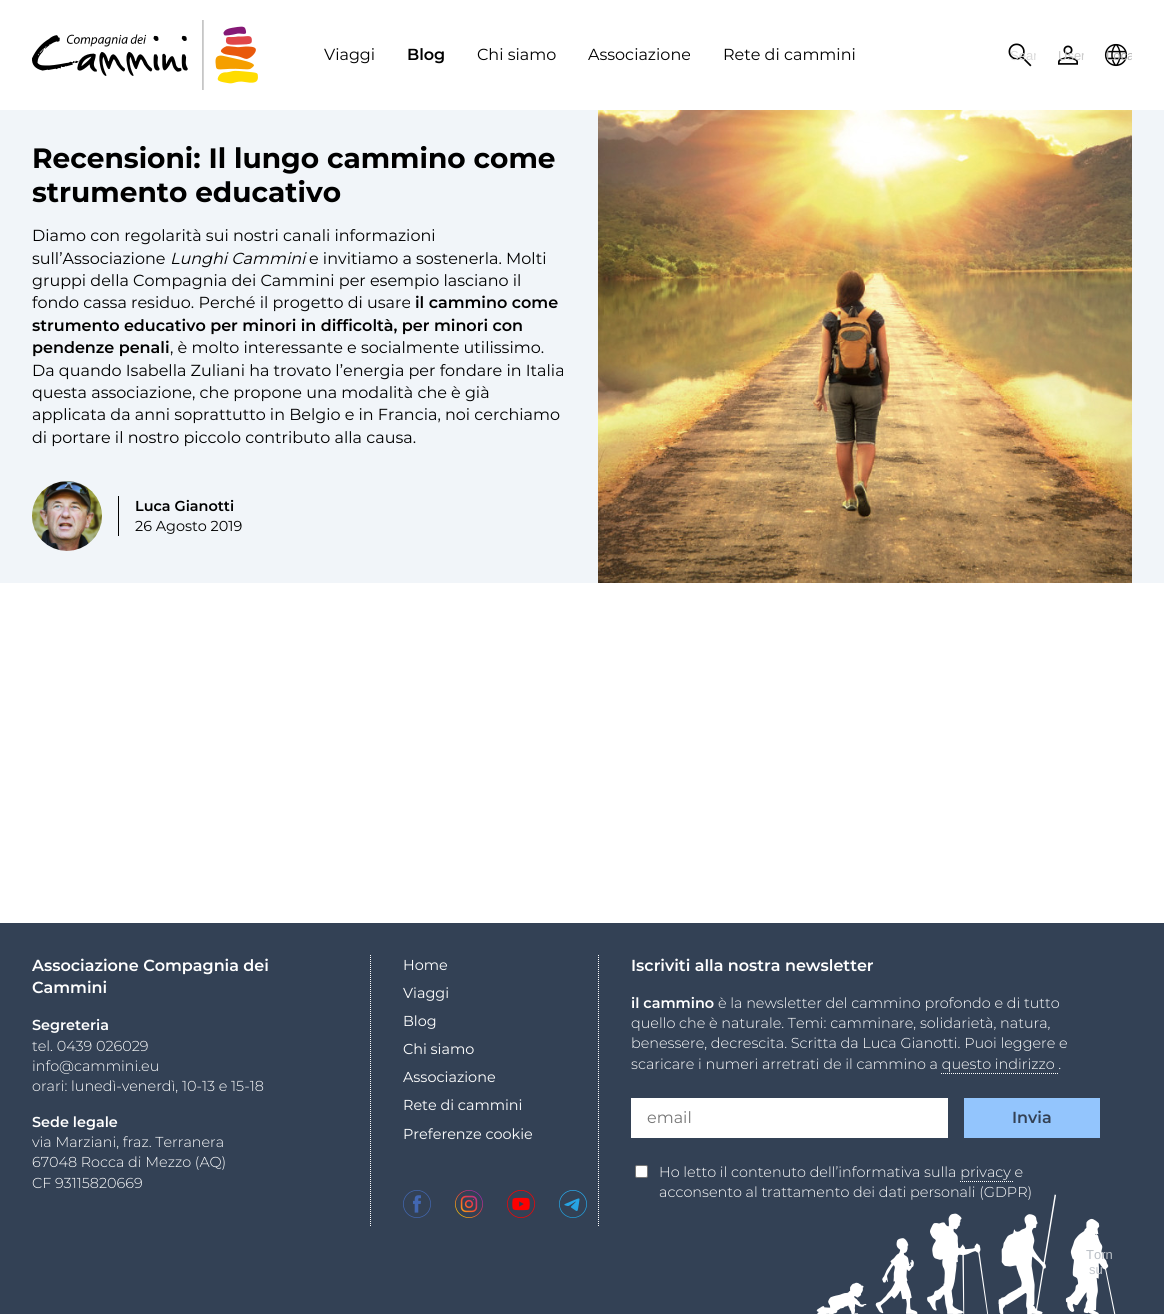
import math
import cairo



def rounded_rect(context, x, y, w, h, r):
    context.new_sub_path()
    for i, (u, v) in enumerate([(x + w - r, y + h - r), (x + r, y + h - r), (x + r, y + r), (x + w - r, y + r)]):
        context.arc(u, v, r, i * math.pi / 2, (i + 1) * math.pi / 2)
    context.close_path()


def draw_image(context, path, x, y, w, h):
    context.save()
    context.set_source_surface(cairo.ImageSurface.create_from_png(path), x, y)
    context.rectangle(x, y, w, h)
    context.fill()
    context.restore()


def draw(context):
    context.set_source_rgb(1, 1, 1)
    context.paint()
    draw_image(context, "images/1.png", 32, 20, 226, 70)
    draw_image(context, "images/2.png", 1008, 43, 24, 24)
    draw_image(context, "images/3.png", 1058, 45, 20, 20)
    draw_image(context, "images/4.png", 1104, 43, 24, 24)
    context.set_source_rgb(241 / 255, 245 / 255, 249 / 255)
    context.rectangle(0, 110, 1164, 473)
    context.fill()
    draw_image(context, "images/5.png", 598, 110, 534, 473)
    draw_image(context, "images/6.png", 32, 481, 70, 70)
    context.set_source_rgb(0, 0, 0)
    context.rectangle(118, 496, 1, 40)
    context.fill()
    context.set_source_rgb(51 / 255, 65 / 255, 85 / 255)
    context.rectangle(0, 923, 1164, 391)
    context.fill()
    draw_image(context, "images/7.png", 816, 1194, 300, 120)
    context.new_path()
    context.move_to(370.5, 955)
    context.line_to(370.5, 1226)
    context.set_source_rgb(1, 1, 1)
    context.set_line_width(1)
    context.set_dash([1, 1])
    context.stroke()
    draw_image(context, "images/8.png", 403, 1190, 28, 28)
    draw_image(context, "images/9.png", 455, 1190, 28, 28)
    draw_image(context, "images/10.png", 507, 1190, 28, 28)
    draw_image(context, "images/11.png", 559, 1190, 28, 28)
    context.new_path()
    context.move_to(598.5, 955)
    context.line_to(598.5, 1226)
    context.stroke()
    context.new_path()
    context.move_to(941, 1073.5)
    context.line_to(1058, 1073.5)
    context.stroke()
    context.rectangle(631, 1098, 317, 40)
    context.fill()
    context.set_source_rgb(147 / 255, 197 / 255, 253 / 255)
    context.rectangle(964, 1098, 136, 40)
    context.fill()
    context.set_source_rgb(1, 1, 1)
    rounded_rect(context, 635.5, 1165.5, 12, 12, 1.5)
    context.fill_preserve()
    context.set_source_rgb(118 / 255, 118 / 255, 118 / 255)
    context.set_dash([])
    context.stroke()
    context.new_path()
    context.move_to(960, 1181.5)
    context.line_to(1014, 1181.5)
    context.set_source_rgb(1, 1, 1)
    context.set_dash([1, 1])
    context.stroke()
    context.select_font_face("Montserrat")
    context.set_font_size(16)
    context.set_source_rgb(0, 0, 0)
    context.move_to(324, 60)
    context.show_text("Viaggi")
    context.select_font_face("Montserrat SemiBold")
    context.move_to(407, 60)
    context.show_text("Blog")
    context.select_font_face("Montserrat")
    context.move_to(477, 60)
    context.show_text("Chi siamo")
    context.move_to(588, 60)
    context.show_text("Associazione")
    context.move_to(723, 60)
    context.show_text("Rete di cammini")
    context.save()
    context.rectangle(1004, 39, 32, 32)
    context.clip()
    context.select_font_face("Liberation Sans")
    context.set_font_size(13)
    context.set_source_rgb(219 / 255, 219 / 255, 219 / 255)
    context.move_to(1010, 60)
    context.show_text("Sear")
    context.restore()
    context.save()
    context.rectangle(1052, 39, 32, 32)
    context.clip()
    context.select_font_face("Liberation Sans")
    context.set_font_size(13)
    context.set_source_rgb(204 / 255, 204 / 255, 204 / 255)
    context.move_to(1058, 60)
    context.show_text("User")
    context.restore()
    context.save()
    context.rectangle(1100, 39, 32, 32)
    context.clip()
    context.select_font_face("Liberation Sans")
    context.set_font_size(13)
    context.set_source_rgb(180 / 255, 180 / 255, 180 / 255)
    context.move_to(1106, 60)
    context.show_text("Loca")
    context.restore()
    context.select_font_face("Montserrat", cairo.FontSlant.NORMAL, cairo.FontWeight.BOLD)
    context.set_font_size(28)
    context.move_to(32, 168)
    context.show_text("Recensioni: Il lungo cammino come")
    context.move_to(32, 202)
    context.show_text("strumento educativo")
    context.select_font_face("Montserrat")
    context.set_font_size(16)
    context.move_to(32, 241)
    context.show_text("Diamo con regolarità sui nostri canali informazioni")
    context.move_to(32, 264)
    context.show_text("sull’Associazione")
    context.select_font_face("Montserrat", cairo.FontSlant.ITALIC)
    context.move_to(170, 264)
    context.show_text("Lunghi Cammini")
    context.select_font_face("Montserrat")
    context.move_to(309, 264)
    context.show_text("e invitiamo a sostenerla. Molti")
    context.move_to(32, 286)
    context.show_text("gruppi della Compagnia dei Cammini per esempio lasciano il")
    context.move_to(32, 308)
    context.show_text("fondo cassa residuo. Perché il progetto di usare")
    context.select_font_face("Montserrat SemiBold")
    context.move_to(415, 308)
    context.show_text("il cammino come")
    context.move_to(32, 331)
    context.show_text("strumento educativo per minori in difficoltà, per minori con")
    context.move_to(32, 353)
    context.show_text("pendenze penali")
    context.select_font_face("Montserrat")
    context.move_to(170, 353)
    context.show_text(", è molto interessante e socialmente utilissimo.")
    context.move_to(32, 376)
    context.show_text("Da quando Isabella Zuliani ha trovato l’energia per fondare in Italia")
    context.move_to(32, 398)
    context.show_text("questa associazione, che propone una modalità che è già")
    context.move_to(32, 420)
    context.show_text("applicata da anni soprattutto in Belgio e in Francia, noi cerchiamo")
    context.move_to(32, 443)
    context.show_text("di portare il nostro piccolo contributo alla causa.")
    context.select_font_face("Montserrat SemiBold")
    context.set_font_size(14.4)
    context.move_to(135, 511)
    context.show_text("Luca Gianotti")
    context.select_font_face("Montserrat")
    context.move_to(135, 531)
    context.show_text("26 Agosto 2019")
    context.select_font_face("Montserrat SemiBold")
    context.set_font_size(16)
    context.set_source_rgb(1, 1, 1)
    context.move_to(32, 971)
    context.show_text("Associazione Compagnia dei")
    context.move_to(32, 993)
    context.show_text("Cammini")
    context.set_font_size(14.4)
    context.move_to(32, 1030)
    context.show_text("Segreteria")
    context.select_font_face("Montserrat Light")
    context.move_to(32, 1051)
    context.show_text("tel. 0439 026029")
    context.move_to(32, 1071)
    context.show_text("info@cammini.eu")
    context.move_to(32, 1091)
    context.show_text("orari: lunedì-venerdì, 10-13 e 15-18")
    context.select_font_face("Montserrat SemiBold")
    context.move_to(32, 1127)
    context.show_text("Sede legale")
    context.select_font_face("Montserrat Light")
    context.move_to(32, 1147)
    context.show_text("via Marziani, fraz. Terranera")
    context.move_to(32, 1167)
    context.show_text("67048 Rocca di Mezzo (AQ)")
    context.move_to(32, 1188)
    context.show_text("CF 93115820669")
    context.select_font_face("Montserrat")
    context.move_to(403, 970)
    context.show_text("Home")
    context.move_to(403, 998)
    context.show_text("Viaggi")
    context.move_to(403, 1026)
    context.show_text("Blog")
    context.move_to(403, 1054)
    context.show_text("Chi siamo")
    context.move_to(403, 1082)
    context.show_text("Associazione")
    context.move_to(403, 1110)
    context.show_text("Rete di cammini")
    context.move_to(403, 1139)
    context.show_text("Preferenze cookie")
    context.select_font_face("Montserrat SemiBold")
    context.set_font_size(16)
    context.move_to(631, 971)
    context.show_text("Iscriviti alla nostra newsletter")
    context.set_font_size(14.4)
    context.move_to(631, 1008)
    context.show_text("il cammino")
    context.select_font_face("Montserrat Light")
    context.move_to(718, 1008)
    context.show_text("è la newsletter del cammino profondo e di tutto")
    context.move_to(631, 1028)
    context.show_text("quello che è naturale. Temi: camminare, solidarietà, natura,")
    context.move_to(631, 1048)
    context.show_text("benessere, decrescita. Scritta da Luca Gianotti. Puoi leggere e")
    context.move_to(631, 1069)
    context.show_text("scaricare i numeri arretrati de il cammino a questo indirizzo .")
    context.select_font_face("Montserrat")
    context.set_font_size(16)
    context.set_source_rgb(117 / 255, 117 / 255, 117 / 255)
    context.move_to(647, 1123)
    context.show_text("email")
    context.select_font_face("Montserrat SemiBold")
    context.set_source_rgb(51 / 255, 65 / 255, 85 / 255)
    context.move_to(1012, 1123)
    context.show_text("Invia")
    context.select_font_face("Montserrat Light")
    context.set_font_size(14.4)
    context.set_source_rgb(1, 1, 1)
    context.move_to(659, 1177)
    context.show_text("Ho letto il contenuto dell’informativa sulla privacy e")
    context.move_to(659, 1197)
    context.show_text("acconsento al trattamento dei dati personali (GDPR)")
    context.save()
    context.rectangle(1080, 1246, 32, 32)
    context.clip()
    context.select_font_face("Liberation Sans")
    context.set_font_size(13)
    context.set_source_rgb(185 / 255, 190 / 255, 197 / 255)
    context.move_to(1086, 1259)
    context.show_text("Torn")
    context.restore()
    context.select_font_face("Liberation Sans")
    context.set_font_size(13)
    context.set_source_rgb(196 / 255, 200 / 255, 206 / 255)
    context.move_to(1089, 1274)
    context.show_text("su")


surface = cairo.ImageSurface(cairo.Format.RGB24, 1164, 1314)
context = cairo.Context(surface)
options = cairo.FontOptions()
options.set_hint_metrics(cairo.HintMetrics.OFF)
options.set_hint_style(cairo.HintStyle.NONE)
context.set_font_options(options)
context.set_miter_limit(4)
draw(context)
surface.write_to_png("out.png")
